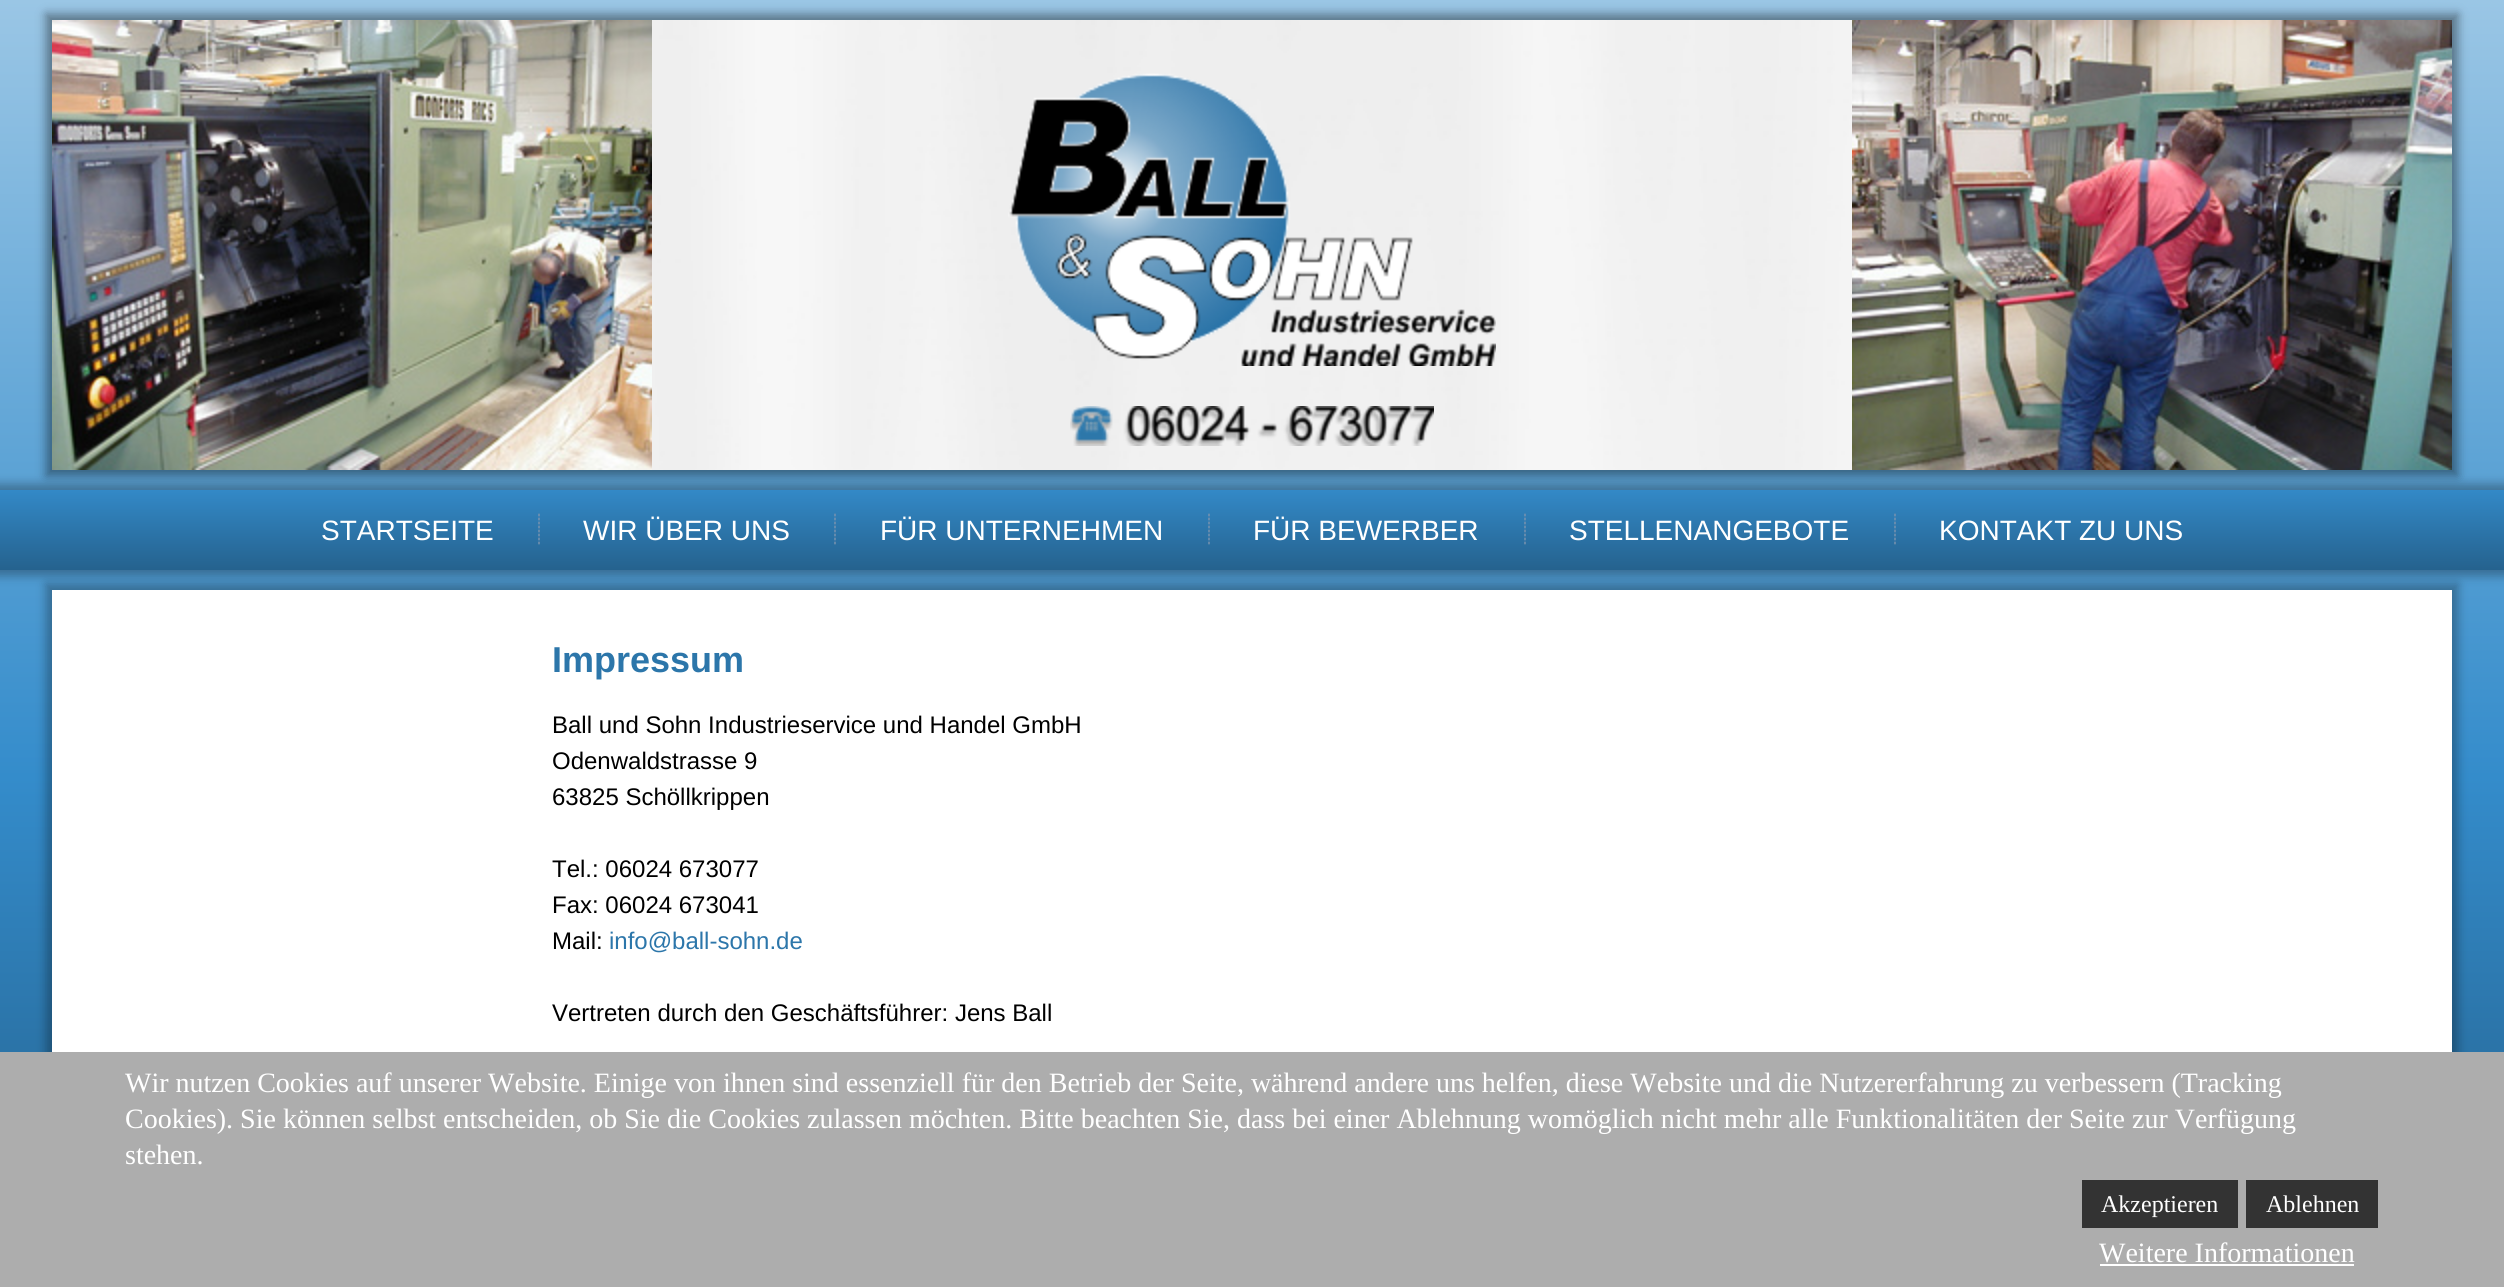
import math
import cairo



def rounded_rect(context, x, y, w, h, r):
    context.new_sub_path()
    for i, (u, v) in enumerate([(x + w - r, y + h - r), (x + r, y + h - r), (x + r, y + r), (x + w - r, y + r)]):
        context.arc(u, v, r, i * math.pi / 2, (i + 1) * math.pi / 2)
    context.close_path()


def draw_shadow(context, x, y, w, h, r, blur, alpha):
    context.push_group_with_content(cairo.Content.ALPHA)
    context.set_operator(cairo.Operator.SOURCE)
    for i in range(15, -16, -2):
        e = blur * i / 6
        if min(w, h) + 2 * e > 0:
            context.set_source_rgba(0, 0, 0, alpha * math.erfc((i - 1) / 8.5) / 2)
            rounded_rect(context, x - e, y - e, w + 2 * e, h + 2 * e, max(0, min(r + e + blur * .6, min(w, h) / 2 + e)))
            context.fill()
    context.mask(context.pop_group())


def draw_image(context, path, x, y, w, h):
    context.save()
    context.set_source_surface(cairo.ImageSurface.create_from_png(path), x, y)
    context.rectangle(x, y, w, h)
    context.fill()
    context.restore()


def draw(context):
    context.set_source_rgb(1, 1, 1)
    context.paint()
    gradient = cairo.LinearGradient(1252, 0, 1252, 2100)
    gradient.add_color_stop_rgba(0, 154 / 255, 198 / 255, 229 / 255, 1)
    gradient.add_color_stop_rgba(0.37, 52 / 255, 140 / 255, 203 / 255, 1)
    gradient.add_color_stop_rgba(1, 8 / 255, 22 / 255, 32 / 255, 1)
    context.set_source(gradient)
    context.rectangle(0, 0, 2504, 1052)
    context.fill()
    context.set_source_rgb(0, 0, 0)
    draw_shadow(context, 46, 14, 2412, 462, 0, 5, 0.4)
    draw_image(context, "images/1.png", 52, 20, 2400, 450)
    draw_shadow(context, 46, 584, 2412, 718, 0, 5, 0.3)
    context.set_source_rgb(1, 1, 1)
    context.rectangle(52, 590, 2400, 462)
    context.fill()
    context.set_source_rgb(0, 0, 0)
    draw_shadow(context, -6, 484, 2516, 92, 0, 5, 0.3)
    gradient = cairo.LinearGradient(1252, 490, 1252, 570)
    gradient.add_color_stop_rgba(0, 51 / 255, 137 / 255, 199 / 255, 1)
    gradient.add_color_stop_rgba(1, 37 / 255, 98 / 255, 142 / 255, 1)
    context.set_source(gradient)
    context.rectangle(0, 490, 2504, 80)
    context.fill()
    draw_image(context, "images/2.png", 538, 513, 2, 32)
    draw_image(context, "images/2.png", 834, 513, 2, 32)
    draw_image(context, "images/2.png", 1208, 513, 2, 32)
    draw_image(context, "images/2.png", 1524, 513, 2, 32)
    draw_image(context, "images/2.png", 1894, 513, 2, 32)
    context.set_source_rgb(173 / 255, 173 / 255, 173 / 255)
    context.rectangle(0, 1052, 2504, 235)
    context.fill()
    context.set_source_rgb(51 / 255, 51 / 255, 51 / 255)
    context.rectangle(2082, 1180, 156, 48)
    context.fill()
    context.rectangle(2246, 1180, 132, 48)
    context.fill()
    context.set_source_rgb(1, 1, 1)
    context.rectangle(2100, 1264, 254, 2)
    context.fill()
    context.select_font_face("Liberation Sans")
    context.set_font_size(28)
    context.move_to(321, 540)
    context.show_text("STARTSEITE")
    context.move_to(583, 540)
    context.show_text("WIR ÜBER UNS")
    context.move_to(880, 540)
    context.show_text("FÜR UNTERNEHMEN")
    context.move_to(1253, 540)
    context.show_text("FÜR BEWERBER")
    context.move_to(1569, 540)
    context.show_text("STELLENANGEBOTE")
    context.move_to(1939, 540)
    context.show_text("KONTAKT ZU UNS")
    context.select_font_face("Liberation Sans", cairo.FontSlant.NORMAL, cairo.FontWeight.BOLD)
    context.set_font_size(36)
    context.set_source_rgb(44 / 255, 118 / 255, 170 / 255)
    context.move_to(552, 672)
    context.show_text("Impressum")
    context.select_font_face("Liberation Sans")
    context.set_font_size(24)
    context.set_source_rgb(0, 0, 0)
    context.move_to(552, 733)
    context.show_text("Ball und Sohn Industrieservice und Handel GmbH")
    context.move_to(552, 769)
    context.show_text("Odenwaldstrasse 9")
    context.move_to(552, 805)
    context.show_text("63825 Schöllkrippen")
    context.move_to(552, 877)
    context.show_text("Tel.: 06024 673077")
    context.move_to(552, 913)
    context.show_text("Fax: 06024 673041")
    context.move_to(552, 949)
    context.show_text("Mail:")
    context.set_source_rgb(44 / 255, 118 / 255, 170 / 255)
    context.move_to(609, 949)
    context.show_text("info@ball-sohn.de")
    context.set_source_rgb(0, 0, 0)
    context.move_to(552, 1021)
    context.show_text("Vertreten durch den Geschäftsführer: Jens Ball")
    context.select_font_face("Liberation Serif")
    context.set_font_size(28)
    context.set_source_rgb(1, 1, 1)
    context.move_to(125, 1092)
    context.show_text("Wir nutzen Cookies auf unserer Website. Einige von ihnen sind essenziell für den Betrieb der Seite, während andere uns helfen, diese Website und die Nutzererfahrung zu verbessern (Tracking")
    context.move_to(125, 1128)
    context.show_text("Cookies). Sie können selbst entscheiden, ob Sie die Cookies zulassen möchten. Bitte beachten Sie, dass bei einer Ablehnung womöglich nicht mehr alle Funktionalitäten der Seite zur Verfügung")
    context.move_to(125, 1164)
    context.show_text("stehen.")
    context.set_font_size(24)
    context.move_to(2101, 1212)
    context.show_text("Akzeptieren")
    context.move_to(2266, 1212)
    context.show_text("Ablehnen")
    context.set_font_size(28)
    context.move_to(2099, 1262)
    context.show_text("Weitere Informationen")


surface = cairo.ImageSurface(cairo.Format.RGB24, 2504, 1287)
context = cairo.Context(surface)
options = cairo.FontOptions()
options.set_hint_metrics(cairo.HintMetrics.OFF)
options.set_hint_style(cairo.HintStyle.NONE)
context.set_font_options(options)
context.set_miter_limit(4)
draw(context)
surface.write_to_png("out.png")
